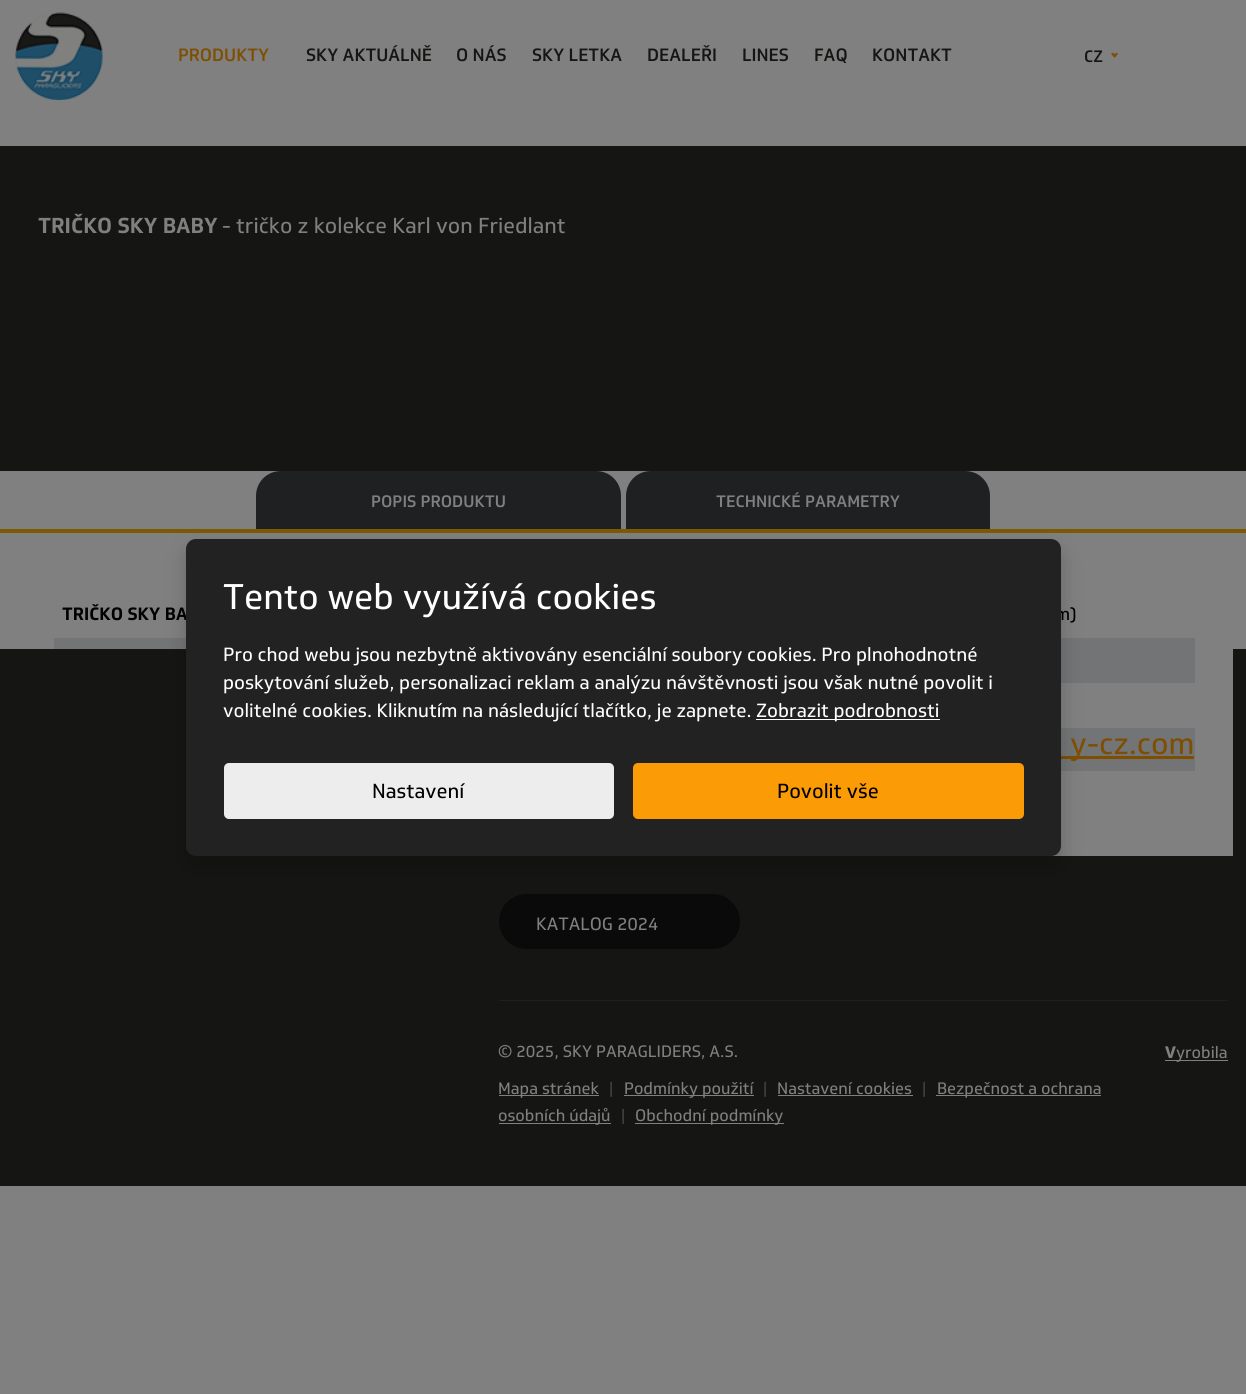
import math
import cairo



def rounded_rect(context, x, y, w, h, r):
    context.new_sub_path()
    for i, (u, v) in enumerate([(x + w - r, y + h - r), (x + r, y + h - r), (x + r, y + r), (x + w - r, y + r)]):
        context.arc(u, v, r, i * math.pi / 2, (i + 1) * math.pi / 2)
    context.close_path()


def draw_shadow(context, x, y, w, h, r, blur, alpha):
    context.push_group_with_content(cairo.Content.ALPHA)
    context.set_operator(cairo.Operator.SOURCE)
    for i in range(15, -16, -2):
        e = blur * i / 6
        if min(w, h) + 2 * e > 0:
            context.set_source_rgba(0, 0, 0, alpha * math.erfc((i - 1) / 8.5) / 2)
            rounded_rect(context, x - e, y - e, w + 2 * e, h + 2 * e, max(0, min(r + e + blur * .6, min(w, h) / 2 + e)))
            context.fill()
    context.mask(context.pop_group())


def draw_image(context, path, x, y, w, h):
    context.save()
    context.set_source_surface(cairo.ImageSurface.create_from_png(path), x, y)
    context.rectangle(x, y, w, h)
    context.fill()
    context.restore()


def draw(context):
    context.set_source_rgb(128 / 255, 128 / 255, 128 / 255)
    context.paint()
    draw_image(context, "images/1.png", 15, 12, 88, 88)
    context.set_source_rgb(126 / 255, 78 / 255, 3 / 255)
    context.new_path()
    context.move_to(1113, 56)
    context.line_to(1116.5, 52.5)
    context.line_to(1118, 54)
    context.line_to(1114.5, 57.5)
    context.close_path()
    context.fill()
    context.new_path()
    context.move_to(1111, 54)
    context.line_to(1113, 52.5)
    context.line_to(1116.5, 56)
    context.line_to(1114.5, 57.5)
    context.close_path()
    context.fill()
    context.set_source_rgb(21 / 255, 21 / 255, 20 / 255)
    context.rectangle(0, 146, 1246, 325)
    context.fill()
    context.set_source_rgb(31 / 255, 32 / 255, 34 / 255)
    context.new_path()
    context.move_to(651, 471)
    context.line_to(965, 471)
    context.curve_to(979, 471, 990, 482, 990, 496)
    context.line_to(990, 529)
    context.line_to(626, 529)
    context.line_to(626, 496)
    context.curve_to(626, 482, 637, 471, 651, 471)
    context.close_path()
    context.fill()
    context.set_source_rgb(21 / 255, 21 / 255, 20 / 255)
    context.rectangle(449, 649, 797, 537)
    context.fill()
    context.set_source_rgb(128 / 255, 128 / 255, 128 / 255)
    context.rectangle(449, 649, 784, 152)
    context.fill()
    context.set_source_rgb(115 / 255, 116 / 255, 118 / 255)
    context.rectangle(54, 638, 1141, 45)
    context.fill()
    context.rectangle(1061, 728, 134, 43)
    context.fill()
    context.set_source_rgb(31 / 255, 32 / 255, 34 / 255)
    context.new_path()
    context.move_to(281, 471)
    context.line_to(596, 471)
    context.curve_to(610, 471, 621, 482, 621, 496)
    context.line_to(621, 529)
    context.line_to(256, 529)
    context.line_to(256, 496)
    context.curve_to(256, 482, 267, 471, 281, 471)
    context.close_path()
    context.fill()
    context.set_source_rgb(128 / 255, 128 / 255, 128 / 255)
    context.rectangle(1051, 801, 182, 55)
    context.fill()
    context.set_source_rgb(126 / 255, 89 / 255, 3 / 255)
    context.rectangle(0, 529, 1246, 4)
    context.fill()
    context.set_source_rgb(21 / 255, 21 / 255, 20 / 255)
    context.rectangle(0, 649, 449, 537)
    context.fill()
    context.set_source_rgb(126 / 255, 78 / 255, 3 / 255)
    context.rectangle(1061, 756, 133, 3)
    context.fill()
    context.set_source_rgb(10 / 255, 10 / 255, 10 / 255)
    rounded_rect(context, 499, 894, 241, 55, 27.5)
    context.fill()
    context.set_source_rgb(31 / 255, 31 / 255, 31 / 255)
    context.rectangle(499, 1000, 729, 1)
    context.fill()
    context.set_source_rgb(128 / 255, 128 / 255, 128 / 255)
    context.rectangle(499, 1095, 100, 1)
    context.fill()
    context.rectangle(624, 1095, 130, 1)
    context.fill()
    context.rectangle(778, 1095, 135, 1)
    context.fill()
    context.rectangle(936, 1095, 165, 1)
    context.fill()
    context.rectangle(499, 1123, 112, 1)
    context.fill()
    context.rectangle(635, 1123, 149, 1)
    context.fill()
    context.rectangle(1165, 1060, 63, 1)
    context.fill()
    context.set_source_rgb(0, 0, 0)
    draw_shadow(context, 186, 549, 875, 317, 10, 10, 0.2)
    context.select_font_face("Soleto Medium")
    context.set_font_size(17.5)
    context.set_source_rgb(126 / 255, 78 / 255, 3 / 255)
    context.move_to(178, 61)
    context.show_text("PRODUKTY")
    context.set_source_rgb(21 / 255, 21 / 255, 20 / 255)
    context.move_to(306, 61)
    context.show_text("SKY AKTUÁLNĚ")
    context.move_to(456, 61)
    context.show_text("O NÁS")
    context.move_to(532, 61)
    context.show_text("SKY LETKA")
    context.move_to(647, 61)
    context.show_text("DEALEŘI")
    context.move_to(742, 61)
    context.show_text("LINES")
    context.move_to(814, 61)
    context.show_text("FAQ")
    context.move_to(872, 61)
    context.show_text("KONTAKT")
    context.set_font_size(16.25)
    context.move_to(1084, 62)
    context.show_text("CZ")
    context.select_font_face("Soleto", cairo.FontSlant.NORMAL, cairo.FontWeight.BOLD)
    context.set_font_size(21.25)
    context.set_source_rgb(128 / 255, 128 / 255, 128 / 255)
    context.move_to(38, 233)
    context.show_text("TRIČKO SKY BABY")
    context.select_font_face("Soleto")
    context.move_to(222, 233)
    context.show_text("- tričko z kolekce Karl von Friedlant")
    context.select_font_face("Soleto Medium")
    context.set_font_size(16.25)
    context.move_to(716, 507)
    context.show_text("TECHNICKÉ PARAMETRY")
    context.select_font_face("Soleto", cairo.FontSlant.NORMAL, cairo.FontWeight.BOLD)
    context.set_font_size(17.5)
    context.set_source_rgb(0, 0, 0)
    context.move_to(62, 620)
    context.show_text("TRIČKO SKY BA")
    context.select_font_face("Soleto")
    context.move_to(1055, 620)
    context.show_text("m)")
    context.select_font_face("Soleto Medium")
    context.set_font_size(16.25)
    context.set_source_rgb(128 / 255, 128 / 255, 128 / 255)
    context.move_to(371, 507)
    context.show_text("POPIS PRODUKTU")
    context.select_font_face("Soleto")
    context.set_font_size(30)
    context.set_source_rgb(126 / 255, 78 / 255, 3 / 255)
    context.move_to(1070, 754)
    context.show_text("y-cz.com")
    context.set_font_size(17.5)
    context.set_source_rgb(128 / 255, 128 / 255, 128 / 255)
    context.move_to(536, 930)
    context.show_text("KATALOG 2024")
    context.set_font_size(16.25)
    context.move_to(498, 1057)
    context.show_text("© 2025, SKY PARAGLIDERS, A.S.")
    context.move_to(498, 1094)
    context.show_text("Mapa stránek")
    context.set_source_rgb(64 / 255, 64 / 255, 64 / 255)
    context.move_to(609, 1094)
    context.show_text("|")
    context.set_source_rgb(128 / 255, 128 / 255, 128 / 255)
    context.move_to(624, 1094)
    context.show_text("Podmínky použití")
    context.set_source_rgb(64 / 255, 64 / 255, 64 / 255)
    context.move_to(763, 1094)
    context.show_text("|")
    context.set_source_rgb(128 / 255, 128 / 255, 128 / 255)
    context.move_to(777, 1094)
    context.show_text("Nastavení cookies")
    context.set_source_rgb(64 / 255, 64 / 255, 64 / 255)
    context.move_to(922, 1094)
    context.show_text("|")
    context.set_source_rgb(128 / 255, 128 / 255, 128 / 255)
    context.move_to(937, 1094)
    context.show_text("Bezpečnost a ochrana")
    context.move_to(498, 1121)
    context.show_text("osobních údajů")
    context.set_source_rgb(64 / 255, 64 / 255, 64 / 255)
    context.move_to(621, 1121)
    context.show_text("|")
    context.set_source_rgb(128 / 255, 128 / 255, 128 / 255)
    context.move_to(635, 1121)
    context.show_text("Obchodní podmínky")
    context.select_font_face("Noto Sans ExtraBold")
    context.move_to(1165, 1058)
    context.show_text("V")
    context.select_font_face("Soleto")
    context.move_to(1176, 1058)
    context.show_text("yrobila")
    context.set_source_rgb(34 / 255, 34 / 255, 34 / 255)
    rounded_rect(context, 186, 539, 875, 317, 10)
    context.fill()
    context.set_font_size(35)
    context.set_source_rgb(1, 1, 1)
    context.move_to(223, 609)
    context.show_text("Tento web využívá cookies")
    context.set_font_size(18.75)
    context.move_to(223, 661)
    context.show_text("Pro chod webu jsou nezbytně aktivovány esenciální soubory cookies. Pro plnohodnotné")
    context.move_to(223, 689)
    context.show_text("poskytování služeb, personalizaci reklam a analýzu návštěvnosti jsou však nutné povolit i")
    context.move_to(223, 717)
    context.show_text("volitelné cookies. Kliknutím na následující tlačítko, je zapnete.")
    context.rectangle(756, 719, 184, 1)
    context.fill()
    context.move_to(756, 717)
    context.show_text("Zobrazit podrobnosti")
    context.set_source_rgb(237 / 255, 237 / 255, 237 / 255)
    rounded_rect(context, 224, 763, 390, 56, 5)
    context.fill()
    context.set_font_size(20)
    context.set_source_rgb(0, 0, 0)
    context.move_to(372, 798)
    context.show_text("Nastavení")
    context.set_source_rgb(251 / 255, 155 / 255, 5 / 255)
    rounded_rect(context, 633, 763, 391, 56, 5)
    context.fill()
    context.set_source_rgb(0, 0, 0)
    context.move_to(777, 798)
    context.show_text("Povolit vše")


surface = cairo.ImageSurface(cairo.Format.RGB24, 1246, 1394)
context = cairo.Context(surface)
options = cairo.FontOptions()
options.set_hint_metrics(cairo.HintMetrics.OFF)
options.set_hint_style(cairo.HintStyle.NONE)
context.set_font_options(options)
context.set_miter_limit(4)
draw(context)
surface.write_to_png("out.png")
